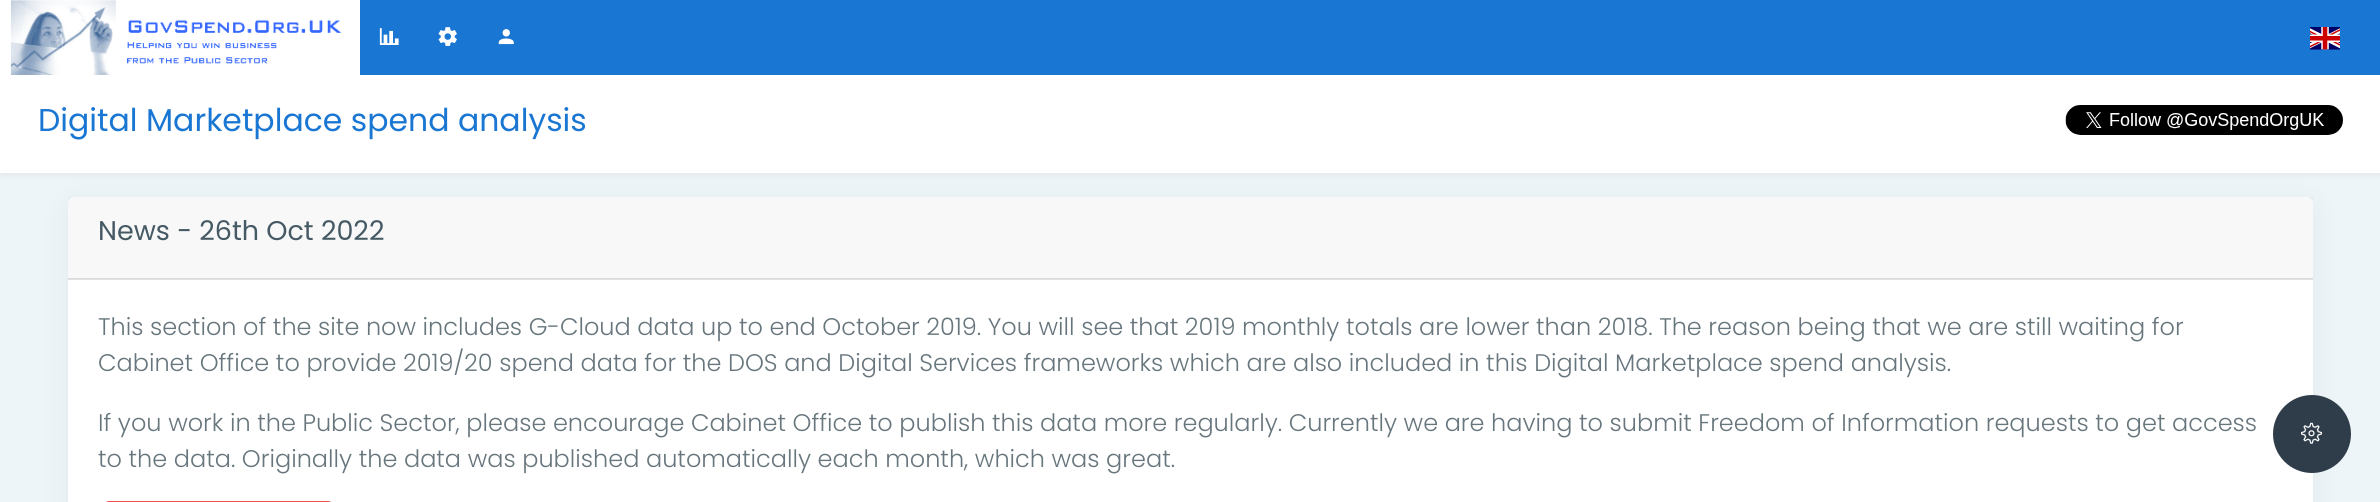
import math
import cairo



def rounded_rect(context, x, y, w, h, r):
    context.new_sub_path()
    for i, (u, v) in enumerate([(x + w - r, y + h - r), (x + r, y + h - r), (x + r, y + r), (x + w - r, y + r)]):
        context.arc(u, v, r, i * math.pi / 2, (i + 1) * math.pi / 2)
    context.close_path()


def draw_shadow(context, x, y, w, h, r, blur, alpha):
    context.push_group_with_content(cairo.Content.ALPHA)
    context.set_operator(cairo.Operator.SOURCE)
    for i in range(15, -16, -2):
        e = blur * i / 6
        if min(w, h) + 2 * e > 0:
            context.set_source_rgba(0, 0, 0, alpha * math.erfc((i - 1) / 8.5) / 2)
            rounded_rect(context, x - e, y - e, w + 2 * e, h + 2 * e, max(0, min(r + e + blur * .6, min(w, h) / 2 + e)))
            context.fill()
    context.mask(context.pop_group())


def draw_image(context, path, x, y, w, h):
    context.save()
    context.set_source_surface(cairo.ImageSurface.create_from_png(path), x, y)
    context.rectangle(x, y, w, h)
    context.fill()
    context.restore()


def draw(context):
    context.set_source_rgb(238 / 255, 245 / 255, 249 / 255)
    context.paint()
    context.set_source_rgb(0, 0, 0)
    draw_shadow(context, 2, 75, 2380, 98, 0, 4, 0.1)
    context.set_source_rgb(25 / 255, 118 / 255, 210 / 255)
    context.rectangle(360, 0, 2020, 75)
    context.fill()
    context.set_source_rgb(1, 1, 1)
    context.rectangle(0, 0, 360, 75)
    context.fill()
    draw_image(context, "images/1.png", 10, 0, 332, 75)
    draw_image(context, "images/2.png", 379, 28, 20, 17)
    draw_image(context, "images/3.png", 438, 27, 19, 19)
    draw_image(context, "images/4.png", 498, 29, 16, 16)
    draw_image(context, "images/5.png", 2310, 27, 30, 23)
    context.set_source_rgb(0, 0, 0)
    draw_shadow(context, 68, 204, 2245, 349, 6, 15, 0.05)
    context.set_source_rgb(1, 1, 1)
    context.rectangle(0, 75, 2380, 98)
    context.fill()
    draw_image(context, "images/6.png", 2065, 105, 278, 30)
    rounded_rect(context, 68, 197, 2245, 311, 6)
    context.fill()
    context.set_source_rgb(47 / 255, 61 / 255, 74 / 255)
    context.arc(2312, 434, 38, 0, 2 * math.pi)
    context.fill_preserve()
    context.stroke()
    draw_image(context, "images/7.png", 2301, 422, 21, 22)
    context.set_source_rgba(0, 0, 0, 0.03)
    context.rectangle(68, 197, 2245, 82)
    context.fill()
    context.set_source_rgba(0, 0, 0, 0.12)
    context.rectangle(68, 278, 2245, 2)
    context.fill()
    rounded_rect(context, 105, 502, 227, 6, 4)
    context.set_source_rgb(239 / 255, 83 / 255, 80 / 255)
    context.stroke()
    context.select_font_face("Poppins")
    context.set_font_size(31.5)
    context.set_source_rgb(25 / 255, 118 / 255, 210 / 255)
    context.move_to(38, 131)
    context.show_text("Digital Marketplace spend analysis")
    context.set_font_size(27)
    context.set_source_rgb(69 / 255, 90 / 255, 100 / 255)
    context.move_to(98, 240)
    context.show_text("News - 26th Oct 2022")
    context.select_font_face("Poppins Light")
    context.set_font_size(24)
    context.set_source_rgb(103 / 255, 117 / 255, 124 / 255)
    context.move_to(98, 335)
    context.show_text("This section of the site now includes G-Cloud data up to end October 2019. You will see that 2019 monthly totals are lower than 2018. The reason being that we are still waiting for")
    context.move_to(98, 371)
    context.show_text("Cabinet Office to provide 2019/20 spend data for the DOS and Digital Services frameworks which are also included in this Digital Marketplace spend analysis.")
    context.move_to(98, 431)
    context.show_text("If you work in the Public Sector, please encourage Cabinet Office to publish this data more regularly. Currently we are having to submit Freedom of Information requests to get access")
    context.move_to(98, 467)
    context.show_text("to the data. Originally the data was published automatically each month, which was great.")


surface = cairo.ImageSurface(cairo.Format.RGB24, 2380, 502)
context = cairo.Context(surface)
options = cairo.FontOptions()
options.set_hint_metrics(cairo.HintMetrics.OFF)
options.set_hint_style(cairo.HintStyle.NONE)
context.set_font_options(options)
context.set_miter_limit(4)
draw(context)
surface.write_to_png("out.png")
